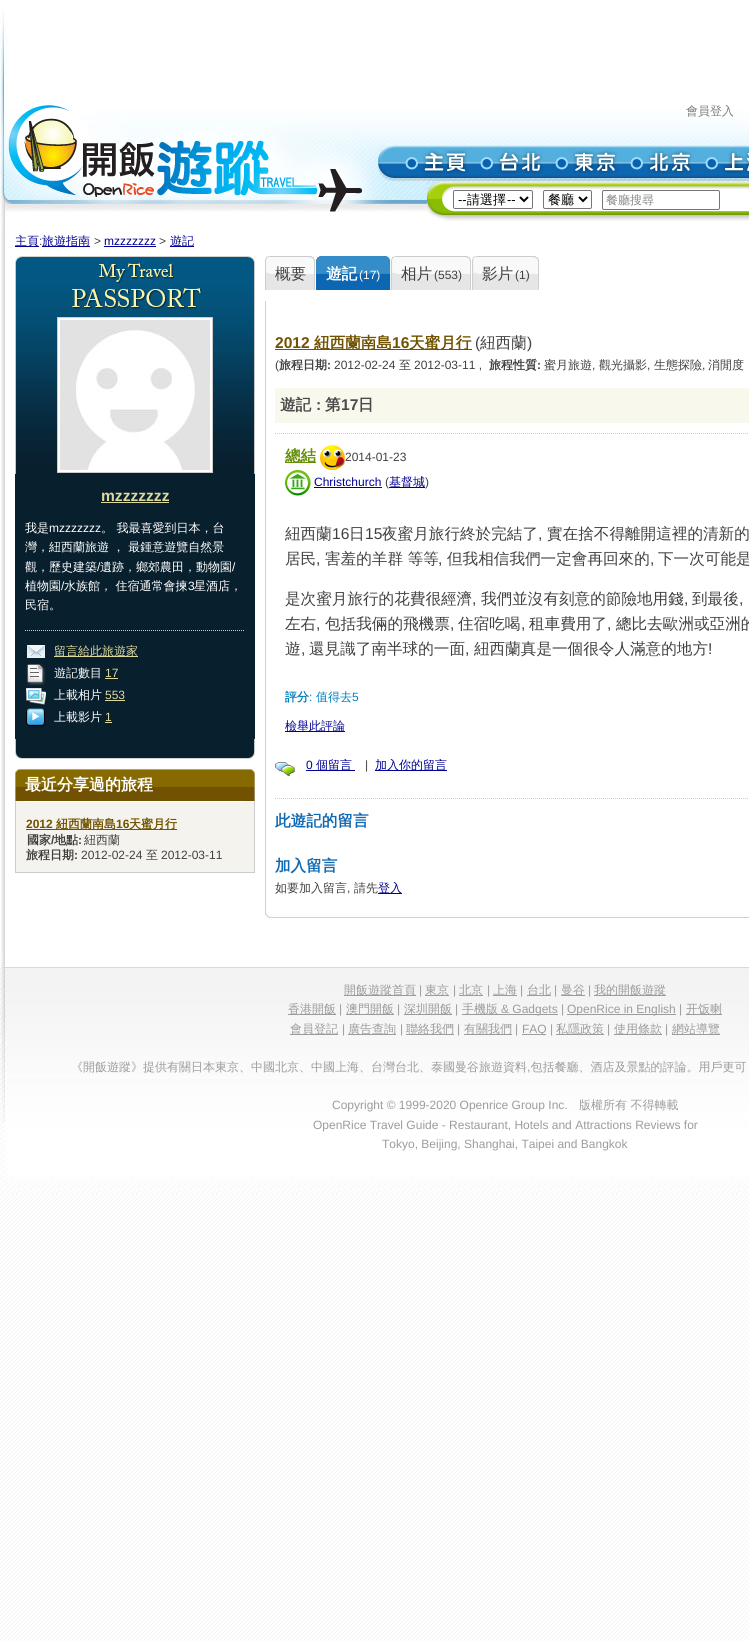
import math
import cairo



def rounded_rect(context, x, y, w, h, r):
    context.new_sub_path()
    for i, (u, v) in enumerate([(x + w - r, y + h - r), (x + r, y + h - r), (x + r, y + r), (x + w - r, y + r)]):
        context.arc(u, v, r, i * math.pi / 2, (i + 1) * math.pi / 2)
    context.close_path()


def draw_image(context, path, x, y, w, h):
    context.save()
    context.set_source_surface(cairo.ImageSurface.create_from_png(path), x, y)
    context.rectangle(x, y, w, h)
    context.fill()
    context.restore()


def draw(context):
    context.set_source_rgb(1, 1, 1)
    context.paint()
    draw_image(context, "images/1.png", 0, 1194, 749, 447)
    draw_image(context, "images/2.png", 0, 11, 749, 216)
    draw_image(context, "images/3.png", 8, 105, 354, 107)
    draw_image(context, "images/4.png", 378, 145, 20, 36)
    draw_image(context, "images/5.png", 398, 145, 75, 36)
    draw_image(context, "images/6.png", 473, 145, 75, 36)
    draw_image(context, "images/7.png", 548, 145, 75, 36)
    draw_image(context, "images/8.png", 623, 145, 75, 36)
    draw_image(context, "images/9.png", 698, 145, 51, 36)
    draw_image(context, "images/10.png", 427, 182, 26, 39)
    draw_image(context, "images/11.png", 453, 182, 296, 39)
    rounded_rect(context, 453.5, 190.5, 79, 18, 1.5)
    context.set_source_rgb(118 / 255, 118 / 255, 118 / 255)
    context.set_line_width(1)
    context.stroke()
    context.new_path()
    context.move_to(520, 197)
    context.line_to(524, 201)
    context.line_to(528, 197)
    context.set_source_rgb(0, 0, 0)
    context.set_line_width(2)
    context.stroke()
    rounded_rect(context, 543.5, 190.5, 48, 18, 1.5)
    context.set_source_rgb(118 / 255, 118 / 255, 118 / 255)
    context.set_line_width(1)
    context.stroke()
    context.new_path()
    context.move_to(579, 197)
    context.line_to(583, 201)
    context.line_to(587, 197)
    context.set_source_rgb(0, 0, 0)
    context.set_line_width(2)
    context.stroke()
    rounded_rect(context, 602.5, 190.5, 117, 19, 1.5)
    context.set_source_rgb(118 / 255, 118 / 255, 118 / 255)
    context.set_line_width(1)
    context.stroke()
    draw_image(context, "images/12.png", 0, 227, 749, 730)
    context.set_source_rgb(0, 0, 148 / 255)
    context.rectangle(15, 246, 24, 1)
    context.fill()
    context.rectangle(42, 246, 48, 1)
    context.fill()
    context.rectangle(104, 246, 52, 1)
    context.fill()
    context.rectangle(170, 246, 24, 1)
    context.fill()
    draw_image(context, "images/13.png", 15, 256, 240, 218)
    context.set_source_rgb(1, 1, 1)
    context.rectangle(57.5, 317.5, 155, 155)
    context.fill_preserve()
    context.set_source_rgb(204 / 255, 204 / 255, 204 / 255)
    context.stroke()
    draw_image(context, "images/14.png", 60, 320, 150, 150)
    context.set_source_rgb(8 / 255, 32 / 255, 46 / 255)
    context.rectangle(15, 474, 240, 265)
    context.fill()
    context.set_source_rgb(221 / 255, 217 / 255, 157 / 255)
    context.rectangle(101, 502, 68, 1)
    context.fill()
    context.new_path()
    context.move_to(25, 630.5)
    context.line_to(245, 630.5)
    context.set_source_rgb(204 / 255, 204 / 255, 204 / 255)
    context.set_dash([1, 1])
    context.stroke()
    draw_image(context, "images/15.png", 27, 645, 18, 13)
    context.set_source_rgb(221 / 255, 217 / 255, 157 / 255)
    context.rectangle(54, 656, 84, 1)
    context.fill()
    draw_image(context, "images/16.png", 26, 664, 20, 21)
    context.rectangle(105, 678, 13, 1)
    context.fill()
    draw_image(context, "images/17.png", 26, 688, 21, 19)
    context.rectangle(105, 700, 20, 1)
    context.fill()
    draw_image(context, "images/18.png", 26, 708, 20, 20)
    context.rectangle(105, 722, 7, 1)
    context.fill()
    draw_image(context, "images/19.png", 15, 739, 240, 20)
    draw_image(context, "images/20.png", 15, 769, 10, 33)
    draw_image(context, "images/21.png", 25, 769, 220, 32)
    draw_image(context, "images/22.png", 245, 769, 10, 33)
    context.set_source_rgb(245 / 255, 243 / 255, 237 / 255)
    context.rectangle(16, 802, 238, 70)
    context.fill()
    context.set_source_rgb(204 / 255, 204 / 255, 204 / 255)
    context.rectangle(254, 802, 1, 71)
    context.fill()
    context.rectangle(15, 872, 240, 1)
    context.fill()
    context.rectangle(15, 802, 1, 71)
    context.fill()
    context.set_source_rgb(112 / 255, 82 / 255, 0)
    context.rectangle(26, 829, 151, 1)
    context.fill()
    draw_image(context, "images/23.png", 265, 256, 5, 34)
    draw_image(context, "images/24.png", 270, 256, 45, 34)
    draw_image(context, "images/25.png", 316, 256, 5, 34)
    draw_image(context, "images/26.png", 321, 256, 70, 34)
    draw_image(context, "images/27.png", 391, 256, 5, 34)
    draw_image(context, "images/28.png", 396, 256, 75, 34)
    draw_image(context, "images/27.png", 472, 256, 5, 34)
    draw_image(context, "images/29.png", 477, 256, 62, 34)
    context.set_source_rgb(208 / 255, 208 / 255, 208 / 255)
    context.rectangle(265, 301, 1, 607)
    context.fill()
    context.set_source_rgb(112 / 255, 82 / 255, 0)
    context.rectangle(275, 349, 197, 1)
    context.fill()
    context.set_source_rgb(249 / 255, 248 / 255, 236 / 255)
    context.rectangle(275, 388, 474, 35)
    context.fill()
    context.new_path()
    context.move_to(275, 433.5)
    context.line_to(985, 433.5)
    context.set_source_rgb(204 / 255, 204 / 255, 204 / 255)
    context.stroke()
    context.set_source_rgb(99 / 255, 141 / 255, 3 / 255)
    context.rectangle(285, 462, 31, 1)
    context.fill()
    draw_image(context, "images/30.png", 320, 445, 25, 25)
    draw_image(context, "images/31.png", 285, 470, 26, 26)
    context.set_source_rgb(0, 0, 148 / 255)
    context.rectangle(314, 487, 68, 1)
    context.fill()
    context.rectangle(389, 487, 36, 1)
    context.fill()
    context.rectangle(285, 731, 60, 1)
    context.fill()
    draw_image(context, "images/32.png", 275, 762, 20, 14)
    context.rectangle(306, 770, 49, 1)
    context.fill()
    context.rectangle(375, 770, 72, 1)
    context.fill()
    context.new_path()
    context.move_to(275, 798.5)
    context.line_to(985, 798.5)
    context.set_source_rgb(204 / 255, 204 / 255, 204 / 255)
    context.stroke()
    context.set_source_rgb(0, 0, 148 / 255)
    context.rectangle(378, 893, 24, 1)
    context.fill()
    draw_image(context, "images/33.png", 265, 908, 484, 10)
    draw_image(context, "images/34.png", 0, 957, 749, 237)
    context.set_source_rgb(156 / 255, 156 / 255, 156 / 255)
    context.rectangle(344, 995, 72, 1)
    context.fill()
    context.rectangle(425, 995, 24, 1)
    context.fill()
    context.rectangle(459, 995, 24, 1)
    context.fill()
    context.rectangle(493, 995, 24, 1)
    context.fill()
    context.rectangle(527, 995, 24, 1)
    context.fill()
    context.rectangle(561, 995, 24, 1)
    context.fill()
    context.rectangle(594, 995, 72, 1)
    context.fill()
    context.rectangle(288, 1014, 48, 1)
    context.fill()
    context.rectangle(346, 1014, 48, 1)
    context.fill()
    context.rectangle(404, 1014, 48, 1)
    context.fill()
    context.rectangle(462, 1014, 96, 1)
    context.fill()
    context.rectangle(567, 1014, 109, 1)
    context.fill()
    context.rectangle(686, 1014, 36, 1)
    context.fill()
    context.rectangle(290, 1034, 48, 1)
    context.fill()
    context.rectangle(348, 1034, 48, 1)
    context.fill()
    context.rectangle(406, 1034, 48, 1)
    context.fill()
    context.rectangle(464, 1034, 48, 1)
    context.fill()
    context.rectangle(522, 1034, 24, 1)
    context.fill()
    context.rectangle(556, 1034, 48, 1)
    context.fill()
    context.rectangle(614, 1034, 48, 1)
    context.fill()
    context.rectangle(672, 1034, 48, 1)
    context.fill()
    context.select_font_face("WenQuanYi Zen Hei Medium")
    context.set_font_size(12)
    context.set_source_rgb(124 / 255, 124 / 255, 124 / 255)
    context.move_to(686, 115)
    context.show_text("會員登入")
    context.select_font_face("Liberation Sans")
    context.set_font_size(13)
    context.set_source_rgb(0, 0, 0)
    context.move_to(458, 204)
    context.show_text("--")
    context.select_font_face("WenQuanYi Zen Hei Medium")
    context.move_to(467, 204)
    context.show_text("請選擇")
    context.select_font_face("Liberation Sans")
    context.move_to(507, 204)
    context.show_text("--")
    context.select_font_face("WenQuanYi Zen Hei Medium")
    context.move_to(548, 204)
    context.show_text("餐廳")
    context.set_font_size(12)
    context.set_source_rgb(136 / 255, 136 / 255, 136 / 255)
    context.move_to(606, 204)
    context.show_text("餐廳搜尋")
    context.set_source_rgb(0, 0, 148 / 255)
    context.move_to(15, 245)
    context.show_text("主頁")
    context.select_font_face("Liberation Sans")
    context.set_source_rgb(64 / 255, 64 / 255, 64 / 255)
    context.move_to(39, 245)
    context.show_text(":")
    context.select_font_face("WenQuanYi Zen Hei Medium")
    context.set_source_rgb(0, 0, 148 / 255)
    context.move_to(42, 245)
    context.show_text("旅遊指南")
    context.select_font_face("Liberation Sans")
    context.set_source_rgb(64 / 255, 64 / 255, 64 / 255)
    context.move_to(94, 245)
    context.show_text(">")
    context.set_source_rgb(0, 0, 148 / 255)
    context.move_to(104, 245)
    context.show_text("mzzzzzzz")
    context.set_source_rgb(64 / 255, 64 / 255, 64 / 255)
    context.move_to(159, 245)
    context.show_text(">")
    context.select_font_face("WenQuanYi Zen Hei Medium")
    context.set_source_rgb(0, 0, 148 / 255)
    context.move_to(170, 245)
    context.show_text("遊記")
    context.select_font_face("Liberation Sans", cairo.FontSlant.NORMAL, cairo.FontWeight.BOLD)
    context.set_font_size(15.6)
    context.set_source_rgb(221 / 255, 217 / 255, 157 / 255)
    context.move_to(101, 501)
    context.show_text("mzzzzzzz")
    context.select_font_face("WenQuanYi Zen Hei Medium")
    context.set_font_size(12)
    context.set_source_rgb(1, 1, 1)
    context.move_to(25, 532)
    context.show_text("我是")
    context.select_font_face("Liberation Sans")
    context.move_to(49, 532)
    context.show_text("mzzzzzzz")
    context.select_font_face("WenQuanYi Zen Hei Medium")
    context.move_to(101, 532)
    context.show_text("。 我最喜愛到日本，台")
    context.move_to(25, 551)
    context.show_text("灣，紐西蘭旅遊 ， 最鍾意遊覽自然景")
    context.move_to(25, 571)
    context.show_text("觀，歷史建築")
    context.select_font_face("Liberation Sans")
    context.move_to(97, 571)
    context.show_text("/")
    context.select_font_face("WenQuanYi Zen Hei Medium")
    context.move_to(100, 571)
    context.show_text("遺跡，鄉郊農田，動物園")
    context.select_font_face("Liberation Sans")
    context.move_to(232, 571)
    context.show_text("/")
    context.select_font_face("WenQuanYi Zen Hei Medium")
    context.move_to(25, 590)
    context.show_text("植物園")
    context.select_font_face("Liberation Sans")
    context.move_to(61, 590)
    context.show_text("/")
    context.select_font_face("WenQuanYi Zen Hei Medium")
    context.move_to(64, 590)
    context.show_text("水族館， 住宿通常會揀")
    context.select_font_face("Liberation Sans")
    context.move_to(188, 590)
    context.show_text("3")
    context.select_font_face("WenQuanYi Zen Hei Medium")
    context.move_to(194, 590)
    context.show_text("星酒店，")
    context.move_to(25, 609)
    context.show_text("民宿。")
    context.set_source_rgb(221 / 255, 217 / 255, 157 / 255)
    context.move_to(54, 655)
    context.show_text("留言給此旅遊家")
    context.set_source_rgb(1, 1, 1)
    context.move_to(54, 677)
    context.show_text("遊記數目")
    context.select_font_face("Liberation Sans")
    context.set_source_rgb(221 / 255, 217 / 255, 157 / 255)
    context.move_to(105, 677)
    context.show_text("17")
    context.select_font_face("WenQuanYi Zen Hei Medium")
    context.set_source_rgb(1, 1, 1)
    context.move_to(54, 699)
    context.show_text("上載相片")
    context.select_font_face("Liberation Sans")
    context.set_source_rgb(221 / 255, 217 / 255, 157 / 255)
    context.move_to(105, 699)
    context.show_text("553")
    context.select_font_face("WenQuanYi Zen Hei Medium")
    context.set_source_rgb(1, 1, 1)
    context.move_to(54, 721)
    context.show_text("上載影片")
    context.select_font_face("Liberation Sans")
    context.set_source_rgb(221 / 255, 217 / 255, 157 / 255)
    context.move_to(105, 721)
    context.show_text("1")
    context.select_font_face("WenQuanYi Zen Hei", cairo.FontSlant.NORMAL, cairo.FontWeight.BOLD)
    context.set_font_size(16)
    context.set_source_rgb(1, 1, 1)
    context.move_to(25, 790)
    context.show_text("最近分享過的旅程")
    context.select_font_face("Liberation Sans", cairo.FontSlant.NORMAL, cairo.FontWeight.BOLD)
    context.set_font_size(12)
    context.set_source_rgb(112 / 255, 82 / 255, 0)
    context.move_to(26, 828)
    context.show_text("2012")
    context.select_font_face("WenQuanYi Zen Hei", cairo.FontSlant.NORMAL, cairo.FontWeight.BOLD)
    context.move_to(56, 828)
    context.show_text("紐西蘭南島")
    context.select_font_face("Liberation Sans", cairo.FontSlant.NORMAL, cairo.FontWeight.BOLD)
    context.move_to(116, 828)
    context.show_text("16")
    context.select_font_face("WenQuanYi Zen Hei", cairo.FontSlant.NORMAL, cairo.FontWeight.BOLD)
    context.move_to(129, 828)
    context.show_text("天蜜月行")
    context.set_source_rgb(64 / 255, 64 / 255, 64 / 255)
    context.move_to(27, 844)
    context.show_text("國家")
    context.select_font_face("Liberation Sans", cairo.FontSlant.NORMAL, cairo.FontWeight.BOLD)
    context.move_to(51, 844)
    context.show_text("/")
    context.select_font_face("WenQuanYi Zen Hei", cairo.FontSlant.NORMAL, cairo.FontWeight.BOLD)
    context.move_to(54, 844)
    context.show_text("地點")
    context.select_font_face("Liberation Sans", cairo.FontSlant.NORMAL, cairo.FontWeight.BOLD)
    context.move_to(78, 844)
    context.show_text(":")
    context.select_font_face("WenQuanYi Zen Hei Medium")
    context.move_to(84, 844)
    context.show_text("紐西蘭")
    context.select_font_face("WenQuanYi Zen Hei", cairo.FontSlant.NORMAL, cairo.FontWeight.BOLD)
    context.move_to(26, 859)
    context.show_text("旅程日期")
    context.select_font_face("Liberation Sans", cairo.FontSlant.NORMAL, cairo.FontWeight.BOLD)
    context.move_to(74, 859)
    context.show_text(":")
    context.select_font_face("Liberation Sans")
    context.move_to(81, 859)
    context.show_text("2012-02-24")
    context.select_font_face("WenQuanYi Zen Hei Medium")
    context.move_to(146, 859)
    context.show_text("至")
    context.select_font_face("Liberation Sans")
    context.move_to(161, 859)
    context.show_text("2012-03-11")
    context.select_font_face("WenQuanYi Zen Hei Medium")
    context.set_font_size(15.6)
    context.move_to(275, 279)
    context.show_text("概要")
    context.select_font_face("WenQuanYi Zen Hei", cairo.FontSlant.NORMAL, cairo.FontWeight.BOLD)
    context.set_source_rgb(1, 1, 1)
    context.move_to(326, 279)
    context.show_text("遊記")
    context.select_font_face("Liberation Sans")
    context.set_font_size(12)
    context.move_to(359, 279)
    context.show_text("(17)")
    context.select_font_face("WenQuanYi Zen Hei Medium")
    context.set_font_size(15.6)
    context.set_source_rgb(64 / 255, 64 / 255, 64 / 255)
    context.move_to(401, 279)
    context.show_text("相片")
    context.select_font_face("Liberation Sans")
    context.set_font_size(12)
    context.move_to(434, 279)
    context.show_text("(553)")
    context.select_font_face("WenQuanYi Zen Hei Medium")
    context.set_font_size(15.6)
    context.move_to(482, 279)
    context.show_text("影片")
    context.select_font_face("Liberation Sans")
    context.set_font_size(12)
    context.move_to(515, 279)
    context.show_text("(1)")
    context.select_font_face("Liberation Sans", cairo.FontSlant.NORMAL, cairo.FontWeight.BOLD)
    context.set_font_size(15.6)
    context.set_source_rgb(112 / 255, 82 / 255, 0)
    context.move_to(275, 348)
    context.show_text("2012")
    context.select_font_face("WenQuanYi Zen Hei", cairo.FontSlant.NORMAL, cairo.FontWeight.BOLD)
    context.move_to(314, 348)
    context.show_text("紐西蘭南島")
    context.select_font_face("Liberation Sans", cairo.FontSlant.NORMAL, cairo.FontWeight.BOLD)
    context.move_to(392, 348)
    context.show_text("16")
    context.select_font_face("WenQuanYi Zen Hei", cairo.FontSlant.NORMAL, cairo.FontWeight.BOLD)
    context.move_to(409, 348)
    context.show_text("天蜜月行")
    context.select_font_face("Liberation Sans")
    context.set_source_rgb(64 / 255, 64 / 255, 64 / 255)
    context.move_to(475, 348)
    context.show_text("(")
    context.select_font_face("WenQuanYi Zen Hei Medium")
    context.move_to(480, 348)
    context.show_text("紐西蘭")
    context.select_font_face("Liberation Sans")
    context.move_to(527, 348)
    context.show_text(")")
    context.set_font_size(12)
    context.move_to(275, 369)
    context.show_text("(")
    context.select_font_face("WenQuanYi Zen Hei", cairo.FontSlant.NORMAL, cairo.FontWeight.BOLD)
    context.move_to(279, 369)
    context.show_text("旅程日期")
    context.select_font_face("Liberation Sans", cairo.FontSlant.NORMAL, cairo.FontWeight.BOLD)
    context.move_to(327, 369)
    context.show_text(":")
    context.select_font_face("Liberation Sans")
    context.move_to(334, 369)
    context.show_text("2012-02-24")
    context.select_font_face("WenQuanYi Zen Hei Medium")
    context.move_to(399, 369)
    context.show_text("至")
    context.select_font_face("Liberation Sans")
    context.move_to(414, 369)
    context.show_text("2012-03-11 ,")
    context.select_font_face("WenQuanYi Zen Hei", cairo.FontSlant.NORMAL, cairo.FontWeight.BOLD)
    context.move_to(489, 369)
    context.show_text("旅程性質")
    context.select_font_face("Liberation Sans", cairo.FontSlant.NORMAL, cairo.FontWeight.BOLD)
    context.move_to(537, 369)
    context.show_text(":")
    context.select_font_face("WenQuanYi Zen Hei Medium")
    context.move_to(544, 369)
    context.show_text("蜜月旅遊")
    context.select_font_face("Liberation Sans")
    context.move_to(592, 369)
    context.show_text(",")
    context.select_font_face("WenQuanYi Zen Hei Medium")
    context.move_to(599, 369)
    context.show_text("觀光攝影")
    context.select_font_face("Liberation Sans")
    context.move_to(647, 369)
    context.show_text(",")
    context.select_font_face("WenQuanYi Zen Hei Medium")
    context.move_to(654, 369)
    context.show_text("生態探險")
    context.select_font_face("Liberation Sans")
    context.move_to(702, 369)
    context.show_text(",")
    context.select_font_face("WenQuanYi Zen Hei Medium")
    context.move_to(708, 369)
    context.show_text("消閒度")
    context.select_font_face("WenQuanYi Zen Hei", cairo.FontSlant.NORMAL, cairo.FontWeight.BOLD)
    context.set_font_size(15.6)
    context.set_source_rgb(74 / 255, 74 / 255, 74 / 255)
    context.move_to(280, 410)
    context.show_text("遊記")
    context.select_font_face("Liberation Sans", cairo.FontSlant.NORMAL, cairo.FontWeight.BOLD)
    context.move_to(316, 410)
    context.show_text(":")
    context.select_font_face("WenQuanYi Zen Hei", cairo.FontSlant.NORMAL, cairo.FontWeight.BOLD)
    context.move_to(325, 410)
    context.show_text("第")
    context.select_font_face("Liberation Sans", cairo.FontSlant.NORMAL, cairo.FontWeight.BOLD)
    context.move_to(341, 410)
    context.show_text("17")
    context.select_font_face("WenQuanYi Zen Hei", cairo.FontSlant.NORMAL, cairo.FontWeight.BOLD)
    context.move_to(358, 410)
    context.show_text("日")
    context.set_source_rgb(99 / 255, 141 / 255, 3 / 255)
    context.move_to(285, 461)
    context.show_text("總結")
    context.select_font_face("Liberation Sans")
    context.set_font_size(12)
    context.set_source_rgb(64 / 255, 64 / 255, 64 / 255)
    context.move_to(345, 461)
    context.show_text("2014-01-23")
    context.set_source_rgb(0, 0, 148 / 255)
    context.move_to(314, 486)
    context.show_text("Christchurch")
    context.set_source_rgb(64 / 255, 64 / 255, 64 / 255)
    context.move_to(385, 486)
    context.show_text("(")
    context.select_font_face("WenQuanYi Zen Hei Medium")
    context.set_source_rgb(0, 0, 148 / 255)
    context.move_to(389, 486)
    context.show_text("基督城")
    context.select_font_face("Liberation Sans")
    context.set_source_rgb(64 / 255, 64 / 255, 64 / 255)
    context.move_to(425, 486)
    context.show_text(")")
    context.select_font_face("WenQuanYi Zen Hei Medium")
    context.set_font_size(15.6)
    context.move_to(285, 539)
    context.show_text("紐西蘭")
    context.select_font_face("Liberation Sans")
    context.move_to(332, 539)
    context.show_text("16")
    context.select_font_face("WenQuanYi Zen Hei Medium")
    context.move_to(349, 539)
    context.show_text("日")
    context.select_font_face("Liberation Sans")
    context.move_to(365, 539)
    context.show_text("15")
    context.select_font_face("WenQuanYi Zen Hei Medium")
    context.move_to(382, 539)
    context.show_text("夜蜜月旅行終於完結了")
    context.select_font_face("Liberation Sans")
    context.move_to(538, 539)
    context.show_text(",")
    context.select_font_face("WenQuanYi Zen Hei Medium")
    context.move_to(547, 539)
    context.show_text("實在捨不得離開這裡的清新的")
    context.move_to(285, 564)
    context.show_text("居民")
    context.select_font_face("Liberation Sans")
    context.move_to(316, 564)
    context.show_text(",")
    context.select_font_face("WenQuanYi Zen Hei Medium")
    context.move_to(325, 564)
    context.show_text("害羞的羊群 等等")
    context.select_font_face("Liberation Sans")
    context.move_to(438, 564)
    context.show_text(",")
    context.select_font_face("WenQuanYi Zen Hei Medium")
    context.move_to(447, 564)
    context.show_text("但我相信我們一定會再回來的")
    context.select_font_face("Liberation Sans")
    context.move_to(650, 564)
    context.show_text(",")
    context.select_font_face("WenQuanYi Zen Hei Medium")
    context.move_to(658, 564)
    context.show_text("下一次可能是")
    context.move_to(285, 604)
    context.show_text("是次蜜月旅行的花費很經濟")
    context.select_font_face("Liberation Sans")
    context.move_to(472, 604)
    context.show_text(",")
    context.select_font_face("WenQuanYi Zen Hei Medium")
    context.move_to(481, 604)
    context.show_text("我們並沒有刻意的節險地用錢")
    context.select_font_face("Liberation Sans")
    context.move_to(684, 604)
    context.show_text(",")
    context.select_font_face("WenQuanYi Zen Hei Medium")
    context.move_to(692, 604)
    context.show_text("到最後")
    context.select_font_face("Liberation Sans")
    context.move_to(739, 604)
    context.show_text(",")
    context.select_font_face("WenQuanYi Zen Hei Medium")
    context.move_to(285, 629)
    context.show_text("左右")
    context.select_font_face("Liberation Sans")
    context.move_to(316, 629)
    context.show_text(",")
    context.select_font_face("WenQuanYi Zen Hei Medium")
    context.move_to(325, 629)
    context.show_text("包括我倆的飛機票")
    context.select_font_face("Liberation Sans")
    context.move_to(450, 629)
    context.show_text(",")
    context.select_font_face("WenQuanYi Zen Hei Medium")
    context.move_to(458, 629)
    context.show_text("住宿吃喝")
    context.select_font_face("Liberation Sans")
    context.move_to(521, 629)
    context.show_text(",")
    context.select_font_face("WenQuanYi Zen Hei Medium")
    context.move_to(529, 629)
    context.show_text("租車費用了")
    context.select_font_face("Liberation Sans")
    context.move_to(607, 629)
    context.show_text(",")
    context.select_font_face("WenQuanYi Zen Hei Medium")
    context.move_to(616, 629)
    context.show_text("總比去歐洲或亞洲的")
    context.move_to(285, 654)
    context.show_text("遊")
    context.select_font_face("Liberation Sans")
    context.move_to(301, 654)
    context.show_text(",")
    context.select_font_face("WenQuanYi Zen Hei Medium")
    context.move_to(309, 654)
    context.show_text("還見識了南半球的一面")
    context.select_font_face("Liberation Sans")
    context.move_to(465, 654)
    context.show_text(",")
    context.select_font_face("WenQuanYi Zen Hei Medium")
    context.move_to(474, 654)
    context.show_text("紐西蘭真是一個很令人滿意的地方")
    context.select_font_face("Liberation Sans")
    context.move_to(708, 654)
    context.show_text("!")
    context.select_font_face("WenQuanYi Zen Hei", cairo.FontSlant.NORMAL, cairo.FontWeight.BOLD)
    context.set_font_size(12)
    context.set_source_rgb(0, 127 / 255, 191 / 255)
    context.move_to(285, 701)
    context.show_text("評分")
    context.select_font_face("Liberation Sans")
    context.move_to(309, 701)
    context.show_text(":")
    context.select_font_face("WenQuanYi Zen Hei Medium")
    context.move_to(316, 701)
    context.show_text("值得去")
    context.select_font_face("Liberation Sans")
    context.move_to(352, 701)
    context.show_text("5")
    context.select_font_face("WenQuanYi Zen Hei Medium")
    context.set_source_rgb(0, 0, 148 / 255)
    context.move_to(285, 730)
    context.show_text("檢舉此評論")
    context.select_font_face("Liberation Sans")
    context.move_to(306, 769)
    context.show_text("0")
    context.select_font_face("WenQuanYi Zen Hei Medium")
    context.move_to(316, 769)
    context.show_text("個留言")
    context.select_font_face("Liberation Sans")
    context.set_source_rgb(64 / 255, 64 / 255, 64 / 255)
    context.move_to(365, 769)
    context.show_text("|")
    context.select_font_face("WenQuanYi Zen Hei Medium")
    context.set_source_rgb(0, 0, 148 / 255)
    context.move_to(375, 769)
    context.show_text("加入你的留言")
    context.select_font_face("WenQuanYi Zen Hei", cairo.FontSlant.NORMAL, cairo.FontWeight.BOLD)
    context.set_font_size(15.6)
    context.set_source_rgb(15 / 255, 105 / 255, 179 / 255)
    context.move_to(275, 826)
    context.show_text("此遊記的留言")
    context.move_to(275, 871)
    context.show_text("加入留言")
    context.select_font_face("WenQuanYi Zen Hei Medium")
    context.set_font_size(12)
    context.set_source_rgb(64 / 255, 64 / 255, 64 / 255)
    context.move_to(275, 892)
    context.show_text("如要加入留言")
    context.select_font_face("Liberation Sans")
    context.move_to(347, 892)
    context.show_text(",")
    context.select_font_face("WenQuanYi Zen Hei Medium")
    context.move_to(354, 892)
    context.show_text("請先")
    context.set_source_rgb(0, 0, 148 / 255)
    context.move_to(378, 892)
    context.show_text("登入")
    context.set_source_rgb(156 / 255, 156 / 255, 156 / 255)
    context.move_to(344, 994)
    context.show_text("開飯遊蹤首頁")
    context.select_font_face("Liberation Sans")
    context.move_to(419, 994)
    context.show_text("|")
    context.select_font_face("WenQuanYi Zen Hei Medium")
    context.move_to(425, 994)
    context.show_text("東京")
    context.select_font_face("Liberation Sans")
    context.move_to(453, 994)
    context.show_text("|")
    context.select_font_face("WenQuanYi Zen Hei Medium")
    context.move_to(459, 994)
    context.show_text("北京")
    context.select_font_face("Liberation Sans")
    context.move_to(487, 994)
    context.show_text("|")
    context.select_font_face("WenQuanYi Zen Hei Medium")
    context.move_to(493, 994)
    context.show_text("上海")
    context.select_font_face("Liberation Sans")
    context.move_to(520, 994)
    context.show_text("|")
    context.select_font_face("WenQuanYi Zen Hei Medium")
    context.move_to(527, 994)
    context.show_text("台北")
    context.select_font_face("Liberation Sans")
    context.move_to(554, 994)
    context.show_text("|")
    context.select_font_face("WenQuanYi Zen Hei Medium")
    context.move_to(561, 994)
    context.show_text("曼谷")
    context.select_font_face("Liberation Sans")
    context.move_to(588, 994)
    context.show_text("|")
    context.select_font_face("WenQuanYi Zen Hei Medium")
    context.move_to(594, 994)
    context.show_text("我的開飯遊蹤")
    context.move_to(288, 1013)
    context.show_text("香港開飯")
    context.select_font_face("Liberation Sans")
    context.move_to(339, 1013)
    context.show_text("|")
    context.select_font_face("WenQuanYi Zen Hei Medium")
    context.move_to(346, 1013)
    context.show_text("澳門開飯")
    context.select_font_face("Liberation Sans")
    context.move_to(397, 1013)
    context.show_text("|")
    context.select_font_face("WenQuanYi Zen Hei Medium")
    context.move_to(404, 1013)
    context.show_text("深圳開飯")
    context.select_font_face("Liberation Sans")
    context.move_to(455, 1013)
    context.show_text("|")
    context.select_font_face("WenQuanYi Zen Hei Medium")
    context.move_to(462, 1013)
    context.show_text("手機版")
    context.select_font_face("Liberation Sans")
    context.move_to(501, 1013)
    context.show_text("& Gadgets |")
    context.move_to(567, 1013)
    context.show_text("OpenRice in English |")
    context.select_font_face("WenQuanYi Zen Hei Medium")
    context.move_to(686, 1013)
    context.show_text("开饭喇")
    context.move_to(290, 1033)
    context.show_text("會員登記")
    context.select_font_face("Liberation Sans")
    context.move_to(342, 1033)
    context.show_text("|")
    context.select_font_face("WenQuanYi Zen Hei Medium")
    context.move_to(348, 1033)
    context.show_text("廣告查詢")
    context.select_font_face("Liberation Sans")
    context.move_to(400, 1033)
    context.show_text("|")
    context.select_font_face("WenQuanYi Zen Hei Medium")
    context.move_to(406, 1033)
    context.show_text("聯絡我們")
    context.select_font_face("Liberation Sans")
    context.move_to(457, 1033)
    context.show_text("|")
    context.select_font_face("WenQuanYi Zen Hei Medium")
    context.move_to(464, 1033)
    context.show_text("有關我們")
    context.select_font_face("Liberation Sans")
    context.move_to(515, 1033)
    context.show_text("|")
    context.move_to(522, 1033)
    context.show_text("FAQ |")
    context.select_font_face("WenQuanYi Zen Hei Medium")
    context.move_to(556, 1033)
    context.show_text("私隱政策")
    context.select_font_face("Liberation Sans")
    context.move_to(607, 1033)
    context.show_text("|")
    context.select_font_face("WenQuanYi Zen Hei Medium")
    context.move_to(614, 1033)
    context.show_text("使用條款")
    context.select_font_face("Liberation Sans")
    context.move_to(665, 1033)
    context.show_text("|")
    context.select_font_face("WenQuanYi Zen Hei Medium")
    context.move_to(672, 1033)
    context.show_text("網站導覽")
    context.move_to(71, 1071)
    context.show_text("《開飯遊蹤》提供有關日本東京、中國北京、中國上海、台灣台北、泰國曼谷旅遊資料 包括餐廳、酒店及景點的評論。用戶更可")
    context.select_font_face("Liberation Sans")
    context.move_to(527, 1071)
    context.show_text(",")
    context.move_to(332, 1109)
    context.show_text("Copyright © 1999-2020 Openrice Group Inc.")
    context.select_font_face("WenQuanYi Zen Hei Medium")
    context.move_to(579, 1109)
    context.show_text("版權所有 不得轉載")
    context.select_font_face("Liberation Sans")
    context.move_to(313, 1129)
    context.show_text("OpenRice Travel Guide - Restaurant, Hotels and Attractions Reviews for")
    context.move_to(382, 1148)
    context.show_text("Tokyo, Beijing, Shanghai, Taipei and Bangkok")


surface = cairo.ImageSurface(cairo.Format.RGB24, 749, 1641)
context = cairo.Context(surface)
options = cairo.FontOptions()
options.set_hint_metrics(cairo.HintMetrics.OFF)
options.set_hint_style(cairo.HintStyle.NONE)
context.set_font_options(options)
context.set_miter_limit(4)
draw(context)
surface.write_to_png("out.png")
